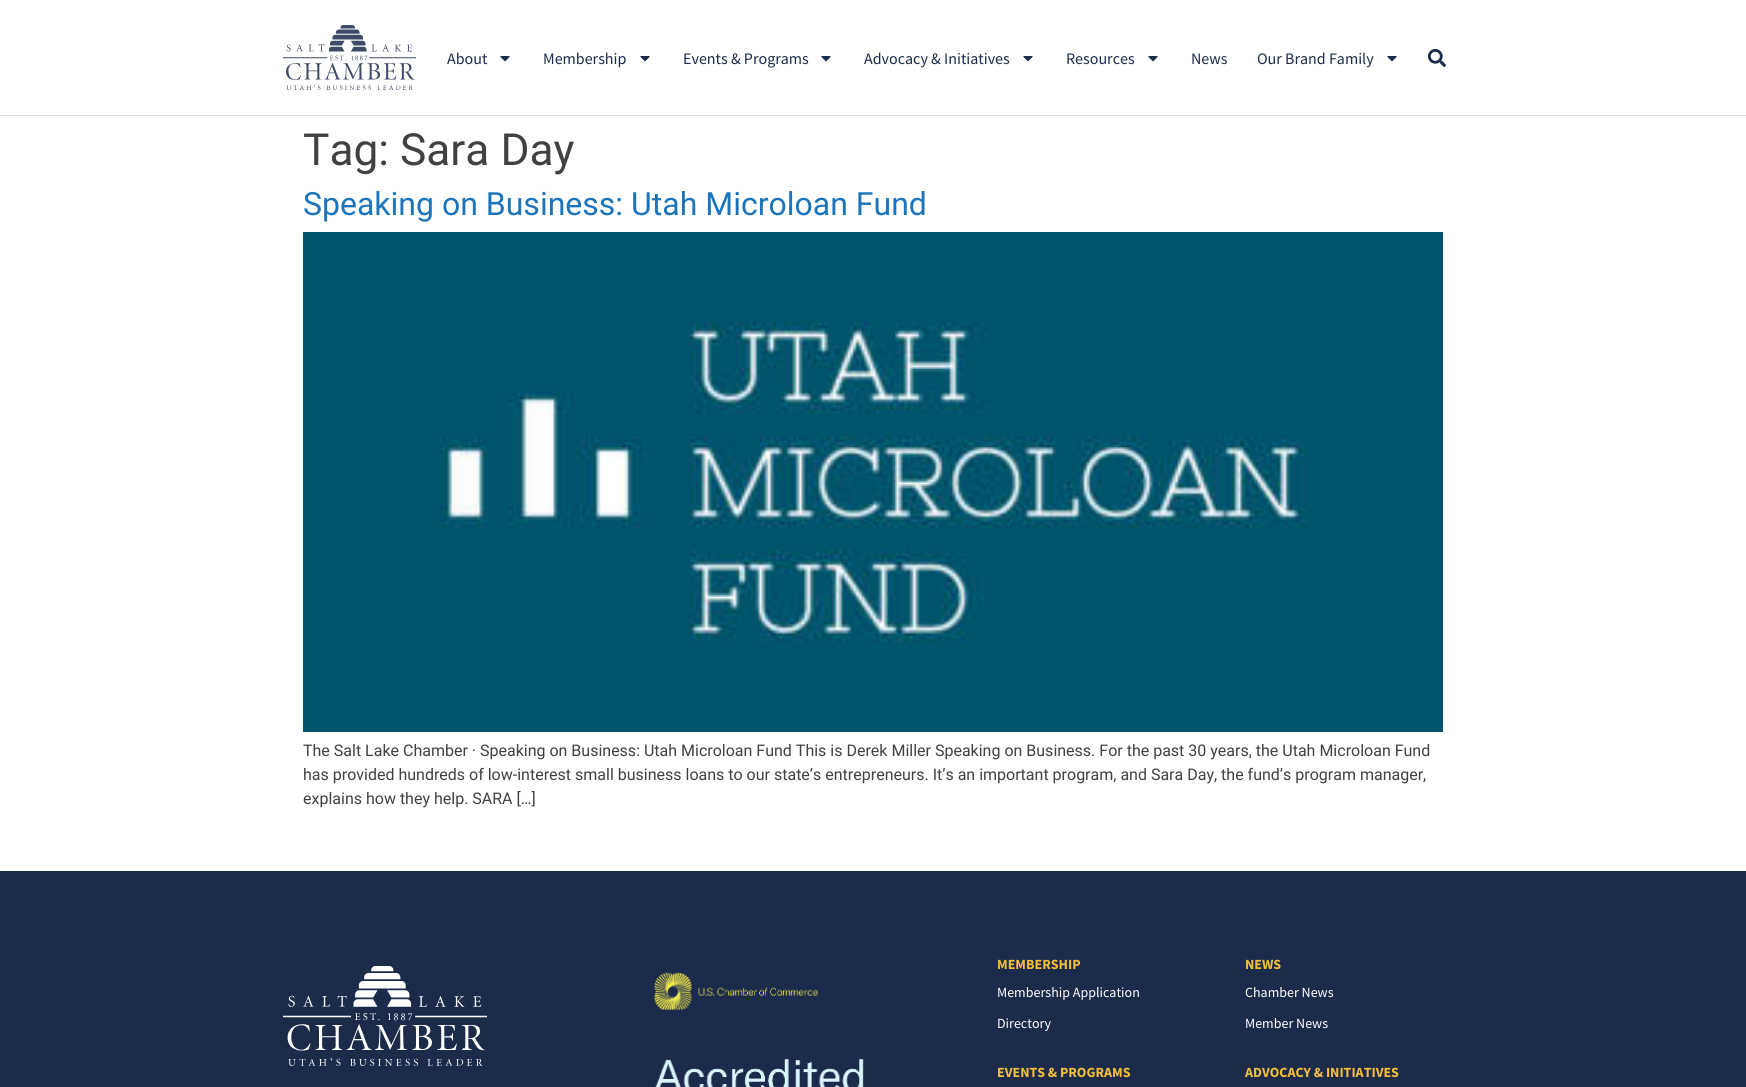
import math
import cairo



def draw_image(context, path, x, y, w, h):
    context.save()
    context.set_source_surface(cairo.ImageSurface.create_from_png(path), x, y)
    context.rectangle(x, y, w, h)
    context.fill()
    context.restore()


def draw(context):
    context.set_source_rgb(1, 1, 1)
    context.paint()
    context.set_source_rgb(222 / 255, 223 / 255, 224 / 255)
    context.rectangle(0, 115, 1746, 1)
    context.fill()
    draw_image(context, "images/1.png", 283, 25, 133, 65)
    draw_image(context, "images/2.png", 500, 56, 10, 6)
    draw_image(context, "images/2.png", 640, 56, 10, 6)
    draw_image(context, "images/2.png", 821, 56, 10, 6)
    draw_image(context, "images/2.png", 1023, 56, 10, 6)
    draw_image(context, "images/2.png", 1148, 56, 10, 6)
    draw_image(context, "images/2.png", 1387, 56, 10, 6)
    draw_image(context, "images/3.png", 1428, 49, 18, 18)
    draw_image(context, "images/4.png", 303, 232, 1140, 500)
    context.set_source_rgb(29 / 255, 43 / 255, 75 / 255)
    context.rectangle(0, 871, 1746, 216)
    context.fill()
    draw_image(context, "images/5.png", 283, 966, 204, 100)
    draw_image(context, "images/6.png", 653, 972, 211, 115)
    context.select_font_face("Source Sans Pro")
    context.set_font_size(16)
    context.set_source_rgb(28 / 255, 44 / 255, 75 / 255)
    context.move_to(447, 64)
    context.show_text("About")
    context.move_to(543, 64)
    context.show_text("Membership")
    context.move_to(683, 64)
    context.show_text("Events & Programs")
    context.move_to(864, 64)
    context.show_text("Advocacy & Initiatives")
    context.move_to(1066, 64)
    context.show_text("Resources")
    context.move_to(1191, 64)
    context.show_text("News")
    context.move_to(1257, 64)
    context.show_text("Our Brand Family")
    context.select_font_face("Roboto")
    context.set_font_size(44.25)
    context.set_source_rgb(65 / 255, 64 / 255, 66 / 255)
    context.move_to(303, 165)
    context.show_text("Tag: Sara Day")
    context.set_font_size(32)
    context.set_source_rgb(28 / 255, 117 / 255, 187 / 255)
    context.move_to(303, 215)
    context.show_text("Speaking on Business: Utah Microloan Fund")
    context.set_font_size(16)
    context.set_source_rgb(65 / 255, 64 / 255, 66 / 255)
    context.move_to(303, 756)
    context.show_text("The Salt Lake Chamber · Speaking on Business: Utah Microloan Fund This is Derek Miller Speaking on Business. For the past 30 years, the Utah Microloan Fund")
    context.move_to(303, 780)
    context.show_text("has provided hundreds of low-interest small business loans to our state’s entrepreneurs. It’s an important program, and Sara Day, the fund’s program manager,")
    context.move_to(303, 804)
    context.show_text("explains how they help. SARA […]")
    context.select_font_face("Source Sans Pro", cairo.FontSlant.NORMAL, cairo.FontWeight.BOLD)
    context.set_font_size(14)
    context.set_source_rgb(243 / 255, 190 / 255, 60 / 255)
    context.move_to(997, 969)
    context.show_text("MEMBERSHIP")
    context.select_font_face("Source Sans Pro")
    context.set_source_rgb(1, 1, 1)
    context.move_to(997, 997)
    context.show_text("Membership Application")
    context.move_to(997, 1028)
    context.show_text("Directory")
    context.select_font_face("Source Sans Pro", cairo.FontSlant.NORMAL, cairo.FontWeight.BOLD)
    context.set_source_rgb(243 / 255, 190 / 255, 60 / 255)
    context.move_to(997, 1077)
    context.show_text("EVENTS & PROGRAMS")
    context.move_to(1245, 969)
    context.show_text("NEWS")
    context.select_font_face("Source Sans Pro")
    context.set_source_rgb(1, 1, 1)
    context.move_to(1245, 997)
    context.show_text("Chamber News")
    context.move_to(1245, 1028)
    context.show_text("Member News")
    context.select_font_face("Source Sans Pro", cairo.FontSlant.NORMAL, cairo.FontWeight.BOLD)
    context.set_source_rgb(243 / 255, 190 / 255, 60 / 255)
    context.move_to(1245, 1077)
    context.show_text("ADVOCACY & INITIATIVES")


surface = cairo.ImageSurface(cairo.Format.RGB24, 1746, 1087)
context = cairo.Context(surface)
options = cairo.FontOptions()
options.set_hint_metrics(cairo.HintMetrics.OFF)
options.set_hint_style(cairo.HintStyle.NONE)
context.set_font_options(options)
context.set_miter_limit(4)
draw(context)
surface.write_to_png("out.png")
